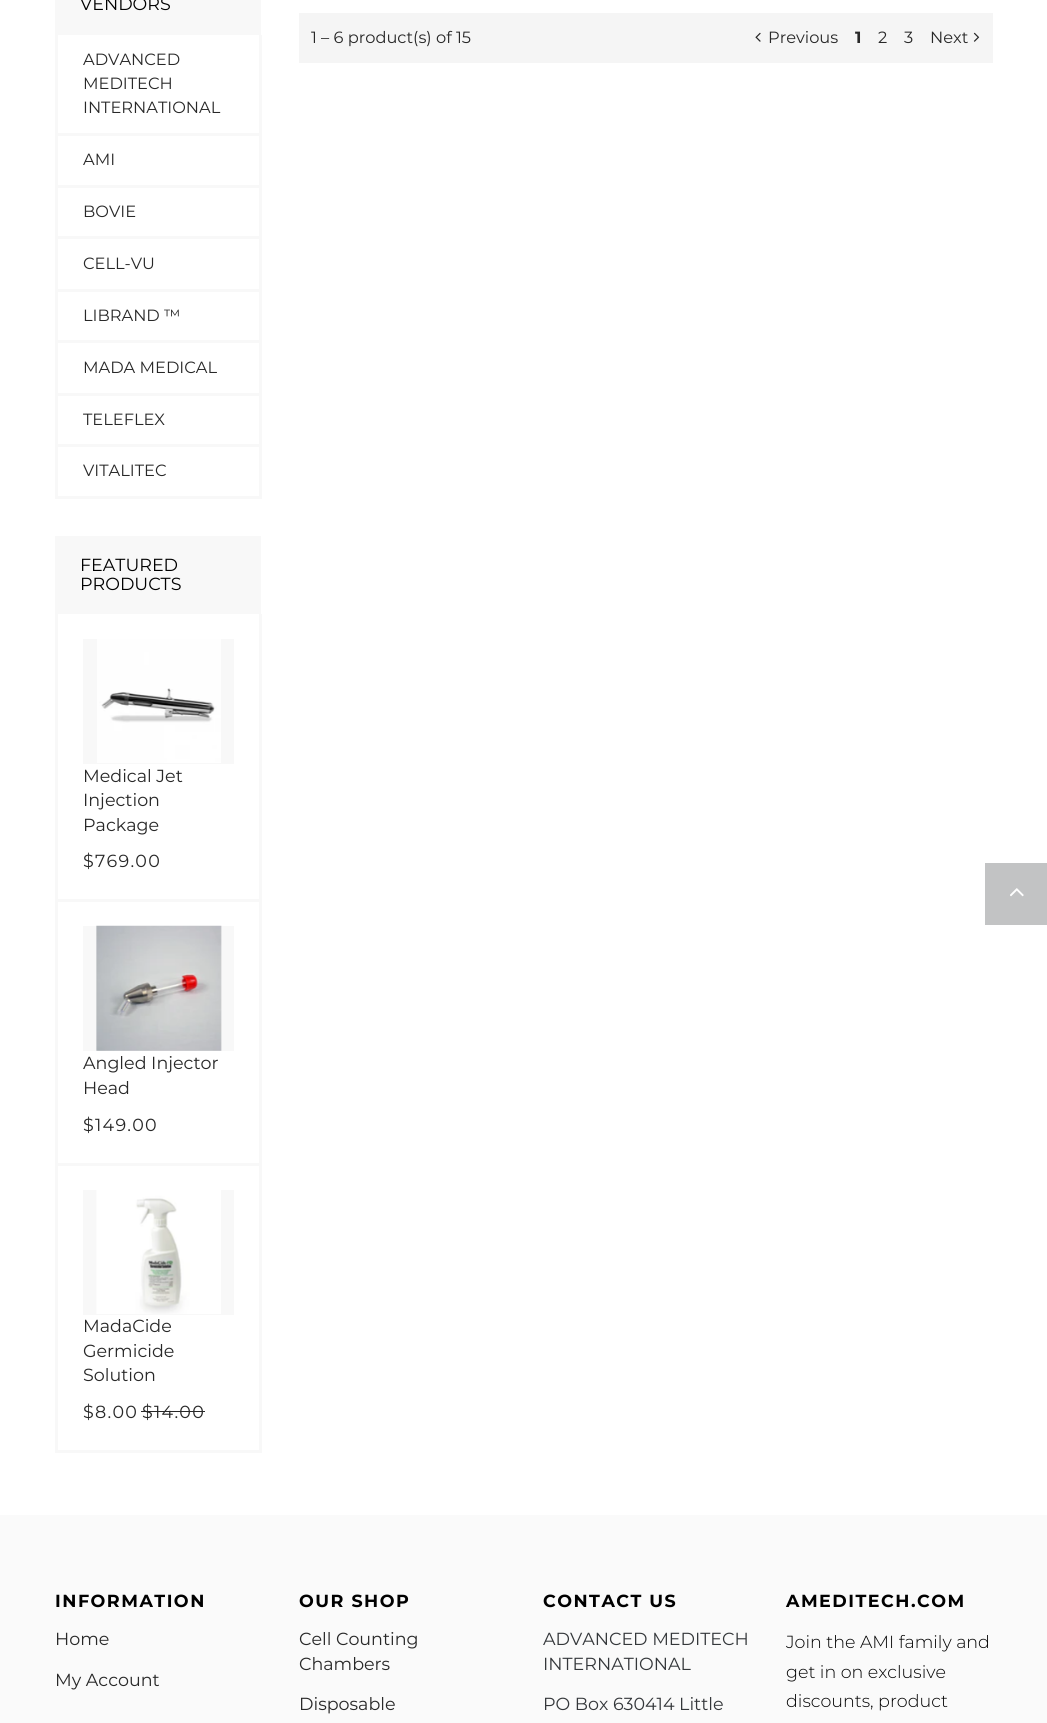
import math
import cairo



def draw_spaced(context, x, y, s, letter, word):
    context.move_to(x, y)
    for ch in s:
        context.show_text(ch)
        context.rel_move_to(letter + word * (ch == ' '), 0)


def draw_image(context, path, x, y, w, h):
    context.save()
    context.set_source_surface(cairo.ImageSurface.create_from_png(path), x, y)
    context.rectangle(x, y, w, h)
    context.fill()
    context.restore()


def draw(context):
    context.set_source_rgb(1, 1, 1)
    context.paint()
    context.set_source_rgb(248 / 255, 248 / 255, 248 / 255)
    context.rectangle(55, 0, 206, 35)
    context.fill()
    context.rectangle(259, 35, 3, 464)
    context.fill()
    context.rectangle(55, 496, 206, 3)
    context.fill()
    context.rectangle(55, 35, 3, 464)
    context.fill()
    context.rectangle(58, 133, 201, 3)
    context.fill()
    context.rectangle(58, 185, 201, 3)
    context.fill()
    context.rectangle(58, 236, 201, 3)
    context.fill()
    context.rectangle(58, 289, 201, 3)
    context.fill()
    context.rectangle(58, 340, 201, 3)
    context.fill()
    context.rectangle(58, 393, 201, 3)
    context.fill()
    context.rectangle(58, 444, 201, 3)
    context.fill()
    context.rectangle(55, 536, 206, 78)
    context.fill()
    context.rectangle(259, 614, 3, 839)
    context.fill()
    context.rectangle(55, 1450, 206, 3)
    context.fill()
    context.rectangle(55, 614, 3, 839)
    context.fill()
    context.rectangle(83, 639, 151, 125)
    context.fill()
    draw_image(context, "images/1.png", 97, 639, 124, 124)
    context.rectangle(58, 899, 201, 3)
    context.fill()
    context.rectangle(83, 926, 151, 125)
    context.fill()
    draw_image(context, "images/2.png", 96, 925, 126, 126)
    context.rectangle(58, 1163, 201, 3)
    context.fill()
    context.rectangle(83, 1190, 151, 125)
    context.fill()
    draw_image(context, "images/3.png", 96, 1190, 125, 124)
    context.set_source_rgb(40 / 255, 40 / 255, 40 / 255)
    context.rectangle(141, 1411, 64, 1)
    context.fill()
    context.set_source_rgb(245 / 255, 245 / 255, 245 / 255)
    context.rectangle(299, 13, 694, 50)
    context.fill()
    draw_image(context, "images/4.png", 755, 32, 6, 10)
    draw_image(context, "images/5.png", 973, 32, 7, 10)
    context.set_source_rgb(250 / 255, 250 / 255, 250 / 255)
    context.rectangle(0, 1515, 1047, 208)
    context.fill()
    context.set_source_rgb(194 / 255, 195 / 255, 196 / 255)
    context.rectangle(985, 863, 62, 62)
    context.fill()
    draw_image(context, "images/6.png", 1010, 888, 14, 9)
    context.select_font_face("Montserrat")
    context.set_font_size(17.5)
    context.set_source_rgb(0, 0, 0)
    context.move_to(80, 10)
    context.show_text("VENDORS")
    context.set_font_size(16.25)
    context.set_source_rgb(40 / 255, 40 / 255, 40 / 255)
    context.move_to(83, 65)
    context.show_text("ADVANCED")
    context.move_to(83, 89)
    context.show_text("MEDITECH")
    context.move_to(83, 113)
    context.show_text("INTERNATIONAL")
    context.move_to(83, 165)
    context.show_text("AMI")
    context.move_to(83, 217)
    context.show_text("BOVIE")
    context.move_to(83, 269)
    context.show_text("CELL-VU")
    context.move_to(83, 321)
    context.show_text("LIBRAND ™")
    context.move_to(83, 373)
    context.show_text("MADA MEDICAL")
    context.move_to(83, 425)
    context.show_text("TELEFLEX")
    context.move_to(83, 476)
    context.show_text("VITALITEC")
    context.set_font_size(17.5)
    context.set_source_rgb(0, 0, 0)
    context.move_to(80, 571)
    context.show_text("FEATURED")
    context.move_to(80, 590)
    context.show_text("PRODUCTS")
    context.set_source_rgb(40 / 255, 40 / 255, 40 / 255)
    context.move_to(83, 782)
    context.show_text("Medical Jet")
    context.move_to(83, 806)
    context.show_text("Injection")
    context.move_to(83, 831)
    context.show_text("Package")
    draw_spaced(context, 83, 867, "$769.00", 1.25, 0)
    context.move_to(83, 1069)
    context.show_text("Angled Injector")
    context.move_to(83, 1094)
    context.show_text("Head")
    draw_spaced(context, 83, 1131, "$149.00", 1.25, 0)
    context.move_to(83, 1332)
    context.show_text("MadaCide")
    context.move_to(83, 1357)
    context.show_text("Germicide")
    context.move_to(83, 1381)
    context.show_text("Solution")
    draw_spaced(context, 83, 1418, "$8.00", 1.25, 0)
    draw_spaced(context, 142, 1418, "$14.00", 1.25, 0)
    context.set_font_size(16.25)
    context.move_to(311, 43)
    context.show_text("1 – 6 product(s) of 15")
    context.move_to(768, 43)
    context.show_text("Previous")
    context.select_font_face("Montserrat", cairo.FontSlant.NORMAL, cairo.FontWeight.BOLD)
    context.move_to(855, 43)
    context.show_text("1")
    context.select_font_face("Montserrat")
    context.move_to(878, 43)
    context.show_text("2")
    context.move_to(904, 43)
    context.show_text("3")
    context.move_to(930, 43)
    context.show_text("Next")
    context.select_font_face("Montserrat", cairo.FontSlant.NORMAL, cairo.FontWeight.BOLD)
    context.set_font_size(17.5)
    context.set_source_rgb(0, 0, 0)
    draw_spaced(context, 55, 1607, "INFORMATION", 1.5, 0)
    context.select_font_face("Montserrat")
    context.set_source_rgb(40 / 255, 40 / 255, 40 / 255)
    context.move_to(55, 1645)
    context.show_text("Home")
    context.move_to(55, 1686)
    context.show_text("My Account")
    context.select_font_face("Montserrat", cairo.FontSlant.NORMAL, cairo.FontWeight.BOLD)
    context.set_source_rgb(0, 0, 0)
    draw_spaced(context, 299, 1607, "OUR SHOP", 1.5, 0)
    context.select_font_face("Montserrat")
    context.set_source_rgb(40 / 255, 40 / 255, 40 / 255)
    context.move_to(299, 1645)
    context.show_text("Cell Counting")
    context.move_to(299, 1670)
    context.show_text("Chambers")
    context.move_to(299, 1710)
    context.show_text("Disposable")
    context.select_font_face("Montserrat", cairo.FontSlant.NORMAL, cairo.FontWeight.BOLD)
    context.set_source_rgb(0, 0, 0)
    draw_spaced(context, 543, 1607, "CONTACT US", 1.5, 0)
    context.select_font_face("Montserrat")
    context.set_source_rgb(52 / 255, 55 / 255, 58 / 255)
    context.move_to(543, 1645)
    context.show_text("ADVANCED MEDITECH")
    context.move_to(543, 1670)
    context.show_text("INTERNATIONAL")
    context.move_to(543, 1710)
    context.show_text("PO Box 630414 Little")
    context.select_font_face("Montserrat", cairo.FontSlant.NORMAL, cairo.FontWeight.BOLD)
    context.set_source_rgb(0, 0, 0)
    draw_spaced(context, 786, 1607, "AMEDITECH.COM", 1.5, 0)
    context.select_font_face("Montserrat Light")
    context.move_to(786, 1648)
    context.show_text("Join the AMI family and")
    context.move_to(786, 1678)
    context.show_text("get in on exclusive")
    context.move_to(786, 1707)
    context.show_text("discounts, product")


surface = cairo.ImageSurface(cairo.Format.RGB24, 1047, 1723)
context = cairo.Context(surface)
options = cairo.FontOptions()
options.set_hint_metrics(cairo.HintMetrics.OFF)
options.set_hint_style(cairo.HintStyle.NONE)
context.set_font_options(options)
context.set_miter_limit(4)
draw(context)
surface.write_to_png("out.png")
